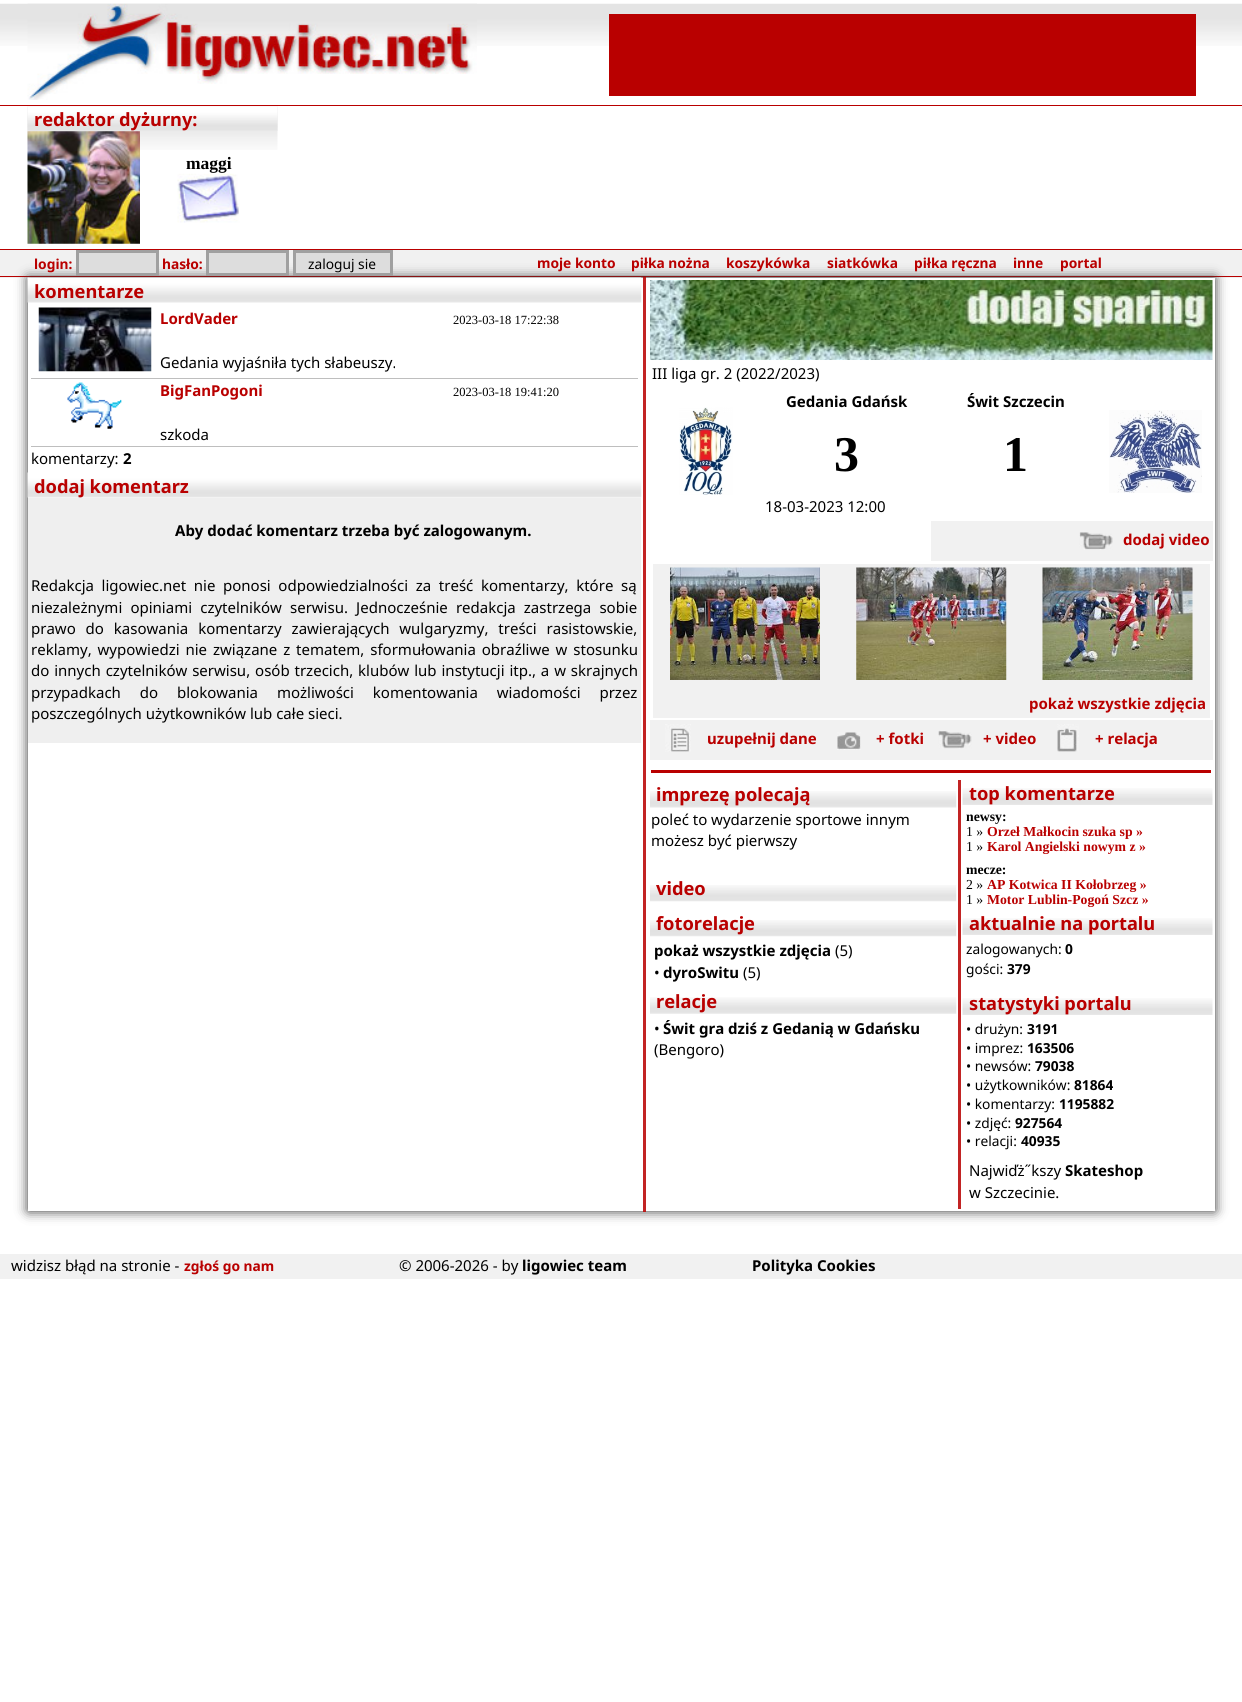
import math
import cairo



def draw_spaced(context, x, y, s, letter, word):
    context.move_to(x, y)
    for ch in s:
        context.show_text(ch)
        context.rel_move_to(letter + word * (ch == ' '), 0)


def rounded_rect(context, x, y, w, h, r):
    context.new_sub_path()
    for i, (u, v) in enumerate([(x + w - r, y + h - r), (x + r, y + h - r), (x + r, y + r), (x + w - r, y + r)]):
        context.arc(u, v, r, i * math.pi / 2, (i + 1) * math.pi / 2)
    context.close_path()


def draw_shadow(context, x, y, w, h, r, blur, alpha):
    context.push_group_with_content(cairo.Content.ALPHA)
    context.set_operator(cairo.Operator.SOURCE)
    for i in range(15, -16, -2):
        e = blur * i / 6
        if min(w, h) + 2 * e > 0:
            context.set_source_rgba(0, 0, 0, alpha * math.erfc((i - 1) / 8.5) / 2)
            rounded_rect(context, x - e, y - e, w + 2 * e, h + 2 * e, max(0, min(r + e + blur * .6, min(w, h) / 2 + e)))
            context.fill()
    context.mask(context.pop_group())


def draw_image(context, path, x, y, w, h):
    context.save()
    context.set_source_surface(cairo.ImageSurface.create_from_png(path), x, y)
    context.rectangle(x, y, w, h)
    context.fill()
    context.restore()


def draw(context):
    context.set_source_rgb(1, 1, 1)
    context.paint()
    draw_image(context, "images/1.png", 0, 3, 1242, 43)
    draw_image(context, "images/2.png", 27, 3, 450, 97)
    context.set_source_rgb(185 / 255, 0, 0)
    context.rectangle(609, 14, 587, 82)
    context.fill()
    context.rectangle(0, 105, 1242, 1)
    context.fill()
    draw_image(context, "images/3.png", 27, 106, 251, 44)
    draw_image(context, "images/4.png", 27, 106, 251, 25)
    draw_image(context, "images/5.png", 27, 131, 113, 113)
    draw_image(context, "images/6.png", 177, 173, 63, 50)
    context.set_source_rgb(241 / 255, 241 / 255, 241 / 255)
    context.rectangle(0, 250, 1242, 28)
    context.fill()
    context.set_source_rgb(185 / 255, 0, 0)
    context.rectangle(0, 249, 1242, 1)
    context.fill()
    context.rectangle(0, 276, 1242, 1)
    context.fill()
    context.save()
    context.set_fill_rule(cairo.FillRule.EVEN_ODD)
    context.new_path()
    context.move_to(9, 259)
    context.line_to(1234, 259)
    context.line_to(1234, 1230)
    context.line_to(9, 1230)
    context.close_path()
    context.move_to(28, 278)
    context.line_to(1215, 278)
    context.line_to(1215, 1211)
    context.line_to(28, 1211)
    context.close_path()
    context.clip()
    context.set_source_rgb(51 / 255, 51 / 255, 51 / 255)
    draw_shadow(context, 28, 278, 1187, 933, 0, 6, 1)
    context.restore()
    context.set_source_rgb(221 / 255, 221 / 255, 221 / 255)
    context.rectangle(77.5, 251.5, 80, 23)
    context.fill_preserve()
    context.set_source_rgb(160 / 255, 160 / 255, 160 / 255)
    context.set_line_width(3)
    context.stroke()
    context.set_source_rgb(221 / 255, 221 / 255, 221 / 255)
    context.rectangle(207.5, 251.5, 80, 23)
    context.fill_preserve()
    context.set_source_rgb(160 / 255, 160 / 255, 160 / 255)
    context.stroke()
    context.set_source_rgb(221 / 255, 221 / 255, 221 / 255)
    context.rectangle(294.5, 251.5, 97, 23)
    context.fill_preserve()
    context.set_source_rgb(160 / 255, 160 / 255, 160 / 255)
    context.stroke()
    draw_image(context, "images/7.png", 27, 277, 615, 26)
    context.set_source_rgb(190 / 255, 190 / 255, 190 / 255)
    context.rectangle(31, 378, 607, 1)
    context.fill()
    draw_image(context, "images/8.png", 38, 307, 114, 65)
    context.rectangle(31, 446, 607, 1)
    context.fill()
    draw_image(context, "images/9.png", 67, 382, 55, 47)
    draw_image(context, "images/10.png", 27, 472, 615, 26)
    context.set_source_rgb(239 / 255, 239 / 255, 239 / 255)
    context.rectangle(28, 498, 613, 245)
    context.fill()
    context.set_source_rgba(188 / 255, 12 / 255, 12 / 255, 0.9)
    context.rectangle(643, 277, 3, 935)
    context.fill()
    draw_image(context, "images/11.png", 650, 280, 563, 80)
    draw_image(context, "images/12.png", 679, 407, 54, 88)
    draw_image(context, "images/13.png", 1109, 410, 93, 83)
    context.set_source_rgb(241 / 255, 241 / 255, 241 / 255)
    context.rectangle(931, 521, 282, 40)
    context.fill()
    draw_image(context, "images/14.png", 1079, 532, 34, 18)
    context.rectangle(653, 564, 557, 154)
    context.fill()
    draw_image(context, "images/15.png", 670, 567, 150, 113)
    draw_image(context, "images/16.png", 856, 567, 151, 113)
    draw_image(context, "images/17.png", 1042, 567, 151, 113)
    context.rectangle(650, 720, 563, 40)
    context.fill()
    draw_image(context, "images/18.png", 665, 724, 26, 28)
    draw_image(context, "images/19.png", 837, 732, 24, 18)
    draw_image(context, "images/20.png", 938, 730, 34, 19)
    draw_image(context, "images/21.png", 1057, 724, 22, 28)
    context.set_source_rgb(185 / 255, 0, 0)
    context.rectangle(651, 770, 560, 3)
    context.fill()
    draw_image(context, "images/22.png", 650, 791, 307, 17)
    draw_image(context, "images/23.png", 650, 885, 307, 17)
    draw_image(context, "images/23.png", 650, 920, 307, 17)
    draw_image(context, "images/24.png", 650, 997, 307, 17)
    context.set_source_rgb(194 / 255, 36 / 255, 36 / 255)
    context.rectangle(958, 780, 3, 429)
    context.fill()
    draw_image(context, "images/25.png", 962, 788, 251, 17)
    draw_image(context, "images/25.png", 962, 918, 251, 17)
    draw_image(context, "images/25.png", 962, 998, 251, 17)
    context.set_source_rgb(241 / 255, 241 / 255, 241 / 255)
    context.rectangle(0, 1254, 1242, 25)
    context.fill()
    context.select_font_face("Noto Sans", cairo.FontSlant.NORMAL, cairo.FontWeight.BOLD)
    context.set_font_size(18.25)
    context.set_source_rgb(185 / 255, 0, 0)
    context.move_to(34, 126)
    context.show_text("redaktor dyżurny:")
    context.select_font_face("Liberation Serif", cairo.FontSlant.NORMAL, cairo.FontWeight.BOLD)
    context.set_font_size(17.5)
    context.set_source_rgb(0, 0, 0)
    context.move_to(186, 169)
    context.show_text("maggi")
    context.select_font_face("Noto Sans", cairo.FontSlant.NORMAL, cairo.FontWeight.BOLD)
    context.set_font_size(13.75)
    context.set_source_rgb(185 / 255, 0, 0)
    context.move_to(34, 269)
    context.show_text("login:")
    context.move_to(162, 269)
    context.show_text("hasło:")
    context.select_font_face("Noto Sans")
    context.set_source_rgb(0, 0, 0)
    context.move_to(308, 269)
    context.show_text("zaloguj sie")
    context.select_font_face("Noto Sans", cairo.FontSlant.NORMAL, cairo.FontWeight.BOLD)
    context.set_source_rgb(185 / 255, 0, 0)
    context.move_to(537, 268)
    context.show_text("moje konto")
    context.move_to(631, 268)
    context.show_text("piłka nożna")
    context.move_to(726, 268)
    context.show_text("koszykówka")
    context.move_to(827, 268)
    context.show_text("siatkówka")
    context.move_to(914, 268)
    context.show_text("piłka ręczna")
    context.move_to(1013, 268)
    context.show_text("inne")
    context.move_to(1060, 268)
    context.show_text("portal")
    context.set_font_size(18.25)
    context.move_to(34, 298)
    context.show_text("komentarze")
    context.set_font_size(15)
    context.move_to(160, 324)
    context.show_text("LordVader")
    context.select_font_face("Liberation Serif")
    context.set_font_size(12.5)
    context.set_source_rgb(0, 0, 0)
    context.move_to(453, 324)
    context.show_text("2023-03-18 17:22:38")
    context.select_font_face("Noto Sans")
    context.set_font_size(15)
    context.move_to(160, 368)
    context.show_text("Gedania wyjaśniła tych słabeuszy.")
    context.select_font_face("Noto Sans", cairo.FontSlant.NORMAL, cairo.FontWeight.BOLD)
    context.set_source_rgb(185 / 255, 0, 0)
    context.move_to(160, 396)
    context.show_text("BigFanPogoni")
    context.select_font_face("Liberation Serif")
    context.set_font_size(12.5)
    context.set_source_rgb(0, 0, 0)
    context.move_to(453, 396)
    context.show_text("2023-03-18 19:41:20")
    context.select_font_face("Noto Sans")
    context.set_font_size(15)
    context.move_to(160, 440)
    context.show_text("szkoda")
    context.move_to(31, 464)
    context.show_text("komentarzy:")
    context.select_font_face("Noto Sans", cairo.FontSlant.NORMAL, cairo.FontWeight.BOLD)
    context.move_to(123, 464)
    context.show_text("2")
    context.set_font_size(18.25)
    context.set_source_rgb(185 / 255, 0, 0)
    context.move_to(34, 493)
    context.show_text("dodaj komentarz")
    context.set_font_size(15)
    context.set_source_rgb(0, 0, 0)
    context.move_to(175, 536)
    context.show_text("Aby dodać komentarz trzeba być zalogowanym.")
    context.select_font_face("Noto Sans")
    draw_spaced(context, 31, 591, "Redakcja ligowiec.net nie ponosi odpowiedzialności za treść komentarzy, które są", 0, 3.75)
    draw_spaced(context, 31, 613, "niezależnymi opiniami czytelników serwisu. Jednocześnie redakcja zastrzega sobie", 0, 4.25)
    draw_spaced(context, 31, 634, "prawo do kasowania komentarzy zawierających wulgaryzmy, treści rasistowskie,", 0, 6)
    draw_spaced(context, 31, 655, "reklamy, wypowiedzi nie związane z tematem, sformułowania obraźliwe w stosunku", 0, 2)
    draw_spaced(context, 31, 676, "do innych czytelników serwisu, osób trzecich, klubów lub instytucji itp., a w skrajnych", 0, 1)
    draw_spaced(context, 31, 698, "przypadkach do blokowania możliwości komentowania wiadomości przez", 0, 15)
    context.move_to(31, 719)
    context.show_text("poszczególnych użytkowników lub całe sieci.")
    context.move_to(652, 379)
    context.show_text("III liga gr. 2 (2022/2023)")
    context.select_font_face("Noto Sans", cairo.FontSlant.NORMAL, cairo.FontWeight.BOLD)
    context.move_to(786, 407)
    context.show_text("Gedania Gdańsk")
    context.move_to(967, 407)
    context.show_text("Świt Szczecin")
    context.select_font_face("Liberation Serif", cairo.FontSlant.NORMAL, cairo.FontWeight.BOLD)
    context.set_font_size(50)
    context.move_to(834, 471)
    context.show_text("3")
    context.move_to(1003, 471)
    context.show_text("1")
    context.select_font_face("Noto Sans")
    context.set_font_size(15)
    context.move_to(765, 512)
    context.show_text("18-03-2023 12:00")
    context.select_font_face("Noto Sans", cairo.FontSlant.NORMAL, cairo.FontWeight.BOLD)
    context.set_source_rgb(185 / 255, 0, 0)
    context.move_to(1123, 545)
    context.show_text("dodaj video")
    context.move_to(1029, 709)
    context.show_text("pokaż wszystkie zdjęcia")
    context.move_to(707, 744)
    context.show_text("uzupełnij dane")
    context.move_to(876, 744)
    context.show_text("+ fotki")
    context.move_to(983, 744)
    context.show_text("+ video")
    context.move_to(1095, 744)
    context.show_text("+ relacja")
    context.set_font_size(18.25)
    context.move_to(656, 801)
    context.show_text("imprezę polecają")
    context.select_font_face("Noto Sans")
    context.set_font_size(15)
    context.set_source_rgb(0, 0, 0)
    context.move_to(651, 825)
    context.show_text("poleć to wydarzenie sportowe innym")
    context.move_to(651, 846)
    context.show_text("możesz być pierwszy")
    context.select_font_face("Noto Sans", cairo.FontSlant.NORMAL, cairo.FontWeight.BOLD)
    context.set_font_size(18.25)
    context.set_source_rgb(185 / 255, 0, 0)
    context.move_to(656, 895)
    context.show_text("video")
    context.move_to(656, 930)
    context.show_text("fotorelacje")
    context.set_font_size(15)
    context.set_source_rgb(0, 0, 0)
    context.move_to(654, 956)
    context.show_text("pokaż wszystkie zdjęcia")
    context.select_font_face("Noto Sans")
    context.move_to(835, 956)
    context.show_text("(5)")
    context.move_to(654, 978)
    context.show_text("•")
    context.select_font_face("Noto Sans", cairo.FontSlant.NORMAL, cairo.FontWeight.BOLD)
    context.move_to(663, 978)
    context.show_text("dyroSwitu")
    context.select_font_face("Noto Sans")
    context.move_to(743, 978)
    context.show_text("(5)")
    context.select_font_face("Noto Sans", cairo.FontSlant.NORMAL, cairo.FontWeight.BOLD)
    context.set_font_size(18.25)
    context.set_source_rgb(185 / 255, 0, 0)
    context.move_to(656, 1008)
    context.show_text("relacje")
    context.select_font_face("Noto Sans")
    context.set_font_size(15)
    context.set_source_rgb(0, 0, 0)
    context.move_to(654, 1034)
    context.show_text("•")
    context.select_font_face("Noto Sans", cairo.FontSlant.NORMAL, cairo.FontWeight.BOLD)
    context.move_to(663, 1034)
    context.show_text("Świt gra dziś z Gedanią w Gdańsku")
    context.select_font_face("Noto Sans")
    context.move_to(654, 1055)
    context.show_text("(Bengoro)")
    context.select_font_face("Noto Sans", cairo.FontSlant.NORMAL, cairo.FontWeight.BOLD)
    context.set_font_size(18.25)
    context.set_source_rgb(185 / 255, 0, 0)
    context.move_to(969, 800)
    context.show_text("top komentarze")
    context.select_font_face("Liberation Serif", cairo.FontSlant.NORMAL, cairo.FontWeight.BOLD)
    context.set_font_size(13.75)
    context.set_source_rgb(0, 0, 0)
    context.move_to(966, 821)
    context.show_text("newsy:")
    context.select_font_face("Liberation Serif")
    context.move_to(966, 836)
    context.show_text("1 »")
    context.select_font_face("Liberation Serif", cairo.FontSlant.NORMAL, cairo.FontWeight.BOLD)
    context.set_source_rgb(185 / 255, 0, 0)
    context.move_to(987, 836)
    context.show_text("Orzeł Małkocin szuka sp »")
    context.select_font_face("Liberation Serif")
    context.set_source_rgb(0, 0, 0)
    context.move_to(966, 851)
    context.show_text("1 »")
    context.select_font_face("Liberation Serif", cairo.FontSlant.NORMAL, cairo.FontWeight.BOLD)
    context.set_source_rgb(185 / 255, 0, 0)
    context.move_to(987, 851)
    context.show_text("Karol Angielski nowym z »")
    context.set_source_rgb(0, 0, 0)
    context.move_to(966, 874)
    context.show_text("mecze:")
    context.select_font_face("Liberation Serif")
    context.move_to(966, 889)
    context.show_text("2 »")
    context.select_font_face("Liberation Serif", cairo.FontSlant.NORMAL, cairo.FontWeight.BOLD)
    context.set_source_rgb(185 / 255, 0, 0)
    context.move_to(987, 889)
    context.show_text("AP Kotwica II Kołobrzeg »")
    context.select_font_face("Liberation Serif")
    context.set_source_rgb(0, 0, 0)
    context.move_to(966, 904)
    context.show_text("1 »")
    context.select_font_face("Liberation Serif", cairo.FontSlant.NORMAL, cairo.FontWeight.BOLD)
    context.set_source_rgb(185 / 255, 0, 0)
    context.move_to(987, 904)
    context.show_text("Motor Lublin-Pogoń Szcz »")
    context.select_font_face("Noto Sans", cairo.FontSlant.NORMAL, cairo.FontWeight.BOLD)
    context.set_font_size(18.25)
    context.move_to(969, 930)
    context.show_text("aktualnie na portalu")
    context.select_font_face("Noto Sans")
    context.set_font_size(13.75)
    context.set_source_rgb(0, 0, 0)
    context.move_to(966, 954)
    context.show_text("zalogowanych:")
    context.select_font_face("Noto Sans", cairo.FontSlant.NORMAL, cairo.FontWeight.BOLD)
    context.move_to(1065, 954)
    context.show_text("0")
    context.select_font_face("Noto Sans")
    context.move_to(966, 974)
    context.show_text("gości:")
    context.select_font_face("Noto Sans", cairo.FontSlant.NORMAL, cairo.FontWeight.BOLD)
    context.move_to(1007, 974)
    context.show_text("379")
    context.set_font_size(18.25)
    context.set_source_rgb(185 / 255, 0, 0)
    context.move_to(969, 1010)
    context.show_text("statystyki portalu")
    context.select_font_face("Noto Sans")
    context.set_font_size(13.75)
    context.set_source_rgb(0, 0, 0)
    context.move_to(966, 1034)
    context.show_text("• drużyn:")
    context.select_font_face("Noto Sans", cairo.FontSlant.NORMAL, cairo.FontWeight.BOLD)
    context.move_to(1027, 1034)
    context.show_text("3191")
    context.select_font_face("Noto Sans")
    context.move_to(966, 1053)
    context.show_text("• imprez:")
    context.select_font_face("Noto Sans", cairo.FontSlant.NORMAL, cairo.FontWeight.BOLD)
    context.move_to(1027, 1053)
    context.show_text("163506")
    context.select_font_face("Noto Sans")
    context.move_to(966, 1071)
    context.show_text("• newsów:")
    context.select_font_face("Noto Sans", cairo.FontSlant.NORMAL, cairo.FontWeight.BOLD)
    context.move_to(1035, 1071)
    context.show_text("79038")
    context.select_font_face("Noto Sans")
    context.move_to(966, 1090)
    context.show_text("• użytkowników:")
    context.select_font_face("Noto Sans", cairo.FontSlant.NORMAL, cairo.FontWeight.BOLD)
    context.move_to(1074, 1090)
    context.show_text("81864")
    context.select_font_face("Noto Sans")
    context.move_to(966, 1109)
    context.show_text("• komentarzy:")
    context.select_font_face("Noto Sans", cairo.FontSlant.NORMAL, cairo.FontWeight.BOLD)
    context.move_to(1059, 1109)
    context.show_text("1195882")
    context.select_font_face("Noto Sans")
    context.move_to(966, 1128)
    context.show_text("• zdjęć:")
    context.select_font_face("Noto Sans", cairo.FontSlant.NORMAL, cairo.FontWeight.BOLD)
    context.move_to(1015, 1128)
    context.show_text("927564")
    context.select_font_face("Noto Sans")
    context.move_to(966, 1146)
    context.show_text("• relacji:")
    context.select_font_face("Noto Sans", cairo.FontSlant.NORMAL, cairo.FontWeight.BOLD)
    context.move_to(1021, 1146)
    context.show_text("40935")
    context.select_font_face("Noto Sans")
    context.set_font_size(15)
    context.move_to(969, 1176)
    context.show_text("Najwiďż˝kszy")
    context.select_font_face("Noto Sans", cairo.FontSlant.NORMAL, cairo.FontWeight.BOLD)
    context.move_to(1065, 1176)
    context.show_text("Skateshop")
    context.select_font_face("Noto Sans")
    context.move_to(969, 1198)
    context.show_text("w Szczecinie.")
    context.move_to(11, 1271)
    context.show_text("widzisz błąd na stronie -")
    context.select_font_face("Noto Sans", cairo.FontSlant.NORMAL, cairo.FontWeight.BOLD)
    context.set_font_size(13.75)
    context.set_source_rgb(185 / 255, 0, 0)
    context.move_to(184, 1271)
    context.show_text("zgłoś go nam")
    context.select_font_face("Noto Sans")
    context.set_font_size(15)
    context.set_source_rgb(0, 0, 0)
    context.move_to(399, 1271)
    context.show_text("© 2006-2026 - by")
    context.select_font_face("Noto Sans", cairo.FontSlant.NORMAL, cairo.FontWeight.BOLD)
    context.move_to(522, 1271)
    context.show_text("ligowiec team")
    context.move_to(752, 1271)
    context.show_text("Polityka Cookies")


surface = cairo.ImageSurface(cairo.Format.RGB24, 1242, 1702)
context = cairo.Context(surface)
options = cairo.FontOptions()
options.set_hint_metrics(cairo.HintMetrics.OFF)
options.set_hint_style(cairo.HintStyle.NONE)
context.set_font_options(options)
context.set_miter_limit(4)
draw(context)
surface.write_to_png("out.png")
